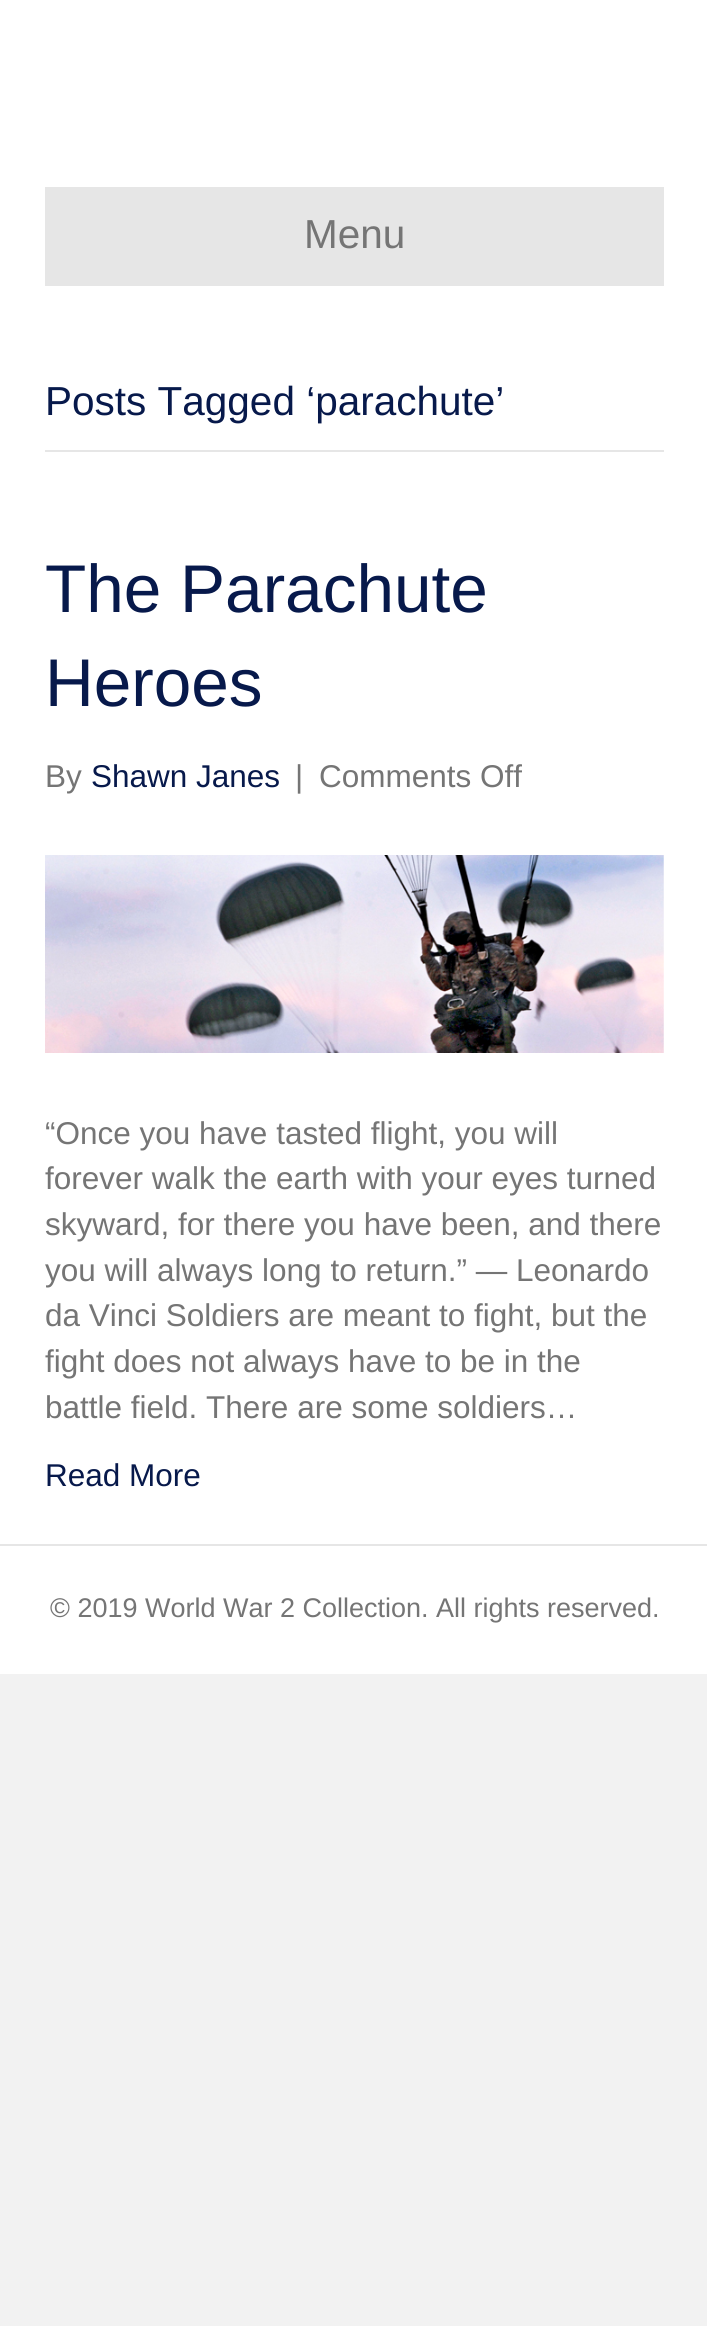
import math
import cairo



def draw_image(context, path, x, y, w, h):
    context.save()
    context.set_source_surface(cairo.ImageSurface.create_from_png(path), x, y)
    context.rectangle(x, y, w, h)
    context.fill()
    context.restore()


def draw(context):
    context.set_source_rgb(242 / 255, 242 / 255, 242 / 255)
    context.paint()
    context.set_source_rgb(1, 1, 1)
    context.rectangle(0, 0, 707, 1544)
    context.fill()
    context.set_source_rgb(230 / 255, 230 / 255, 230 / 255)
    context.rectangle(45, 187, 619, 99)
    context.fill()
    context.rectangle(45, 450, 619, 2)
    context.fill()
    draw_image(context, "images/1.png", 45, 855, 619, 198)
    context.set_source_rgb(1, 1, 1)
    context.rectangle(0, 1546, 707, 128)
    context.fill()
    context.set_source_rgb(230 / 255, 230 / 255, 230 / 255)
    context.rectangle(0, 1544, 707, 2)
    context.fill()
    context.select_font_face("Liberation Sans")
    context.set_font_size(40.5)
    context.set_source_rgb(117 / 255, 117 / 255, 117 / 255)
    context.move_to(304, 248)
    context.show_text("Menu")
    context.set_source_rgb(7 / 255, 25 / 255, 75 / 255)
    context.move_to(45, 415)
    context.show_text("Posts Tagged ‘parachute’")
    context.set_font_size(67.5)
    context.move_to(45, 612)
    context.show_text("The Parachute")
    context.move_to(45, 706)
    context.show_text("Heroes")
    context.set_font_size(31.5)
    context.set_source_rgb(117 / 255, 117 / 255, 117 / 255)
    context.move_to(45, 787)
    context.show_text("By")
    context.set_source_rgb(7 / 255, 25 / 255, 75 / 255)
    context.move_to(91, 787)
    context.show_text("Shawn Janes")
    context.set_source_rgb(117 / 255, 117 / 255, 117 / 255)
    context.move_to(295, 787)
    context.show_text("|")
    context.move_to(319, 787)
    context.show_text("Comments Off")
    context.move_to(45, 1144)
    context.show_text("“Once you have tasted flight, you will")
    context.move_to(45, 1189)
    context.show_text("forever walk the earth with your eyes turned")
    context.move_to(45, 1235)
    context.show_text("skyward, for there you have been, and there")
    context.move_to(45, 1281)
    context.show_text("you will always long to return.” ― Leonardo")
    context.move_to(45, 1326)
    context.show_text("da Vinci Soldiers are meant to fight, but the")
    context.move_to(45, 1372)
    context.show_text("fight does not always have to be in the")
    context.move_to(45, 1418)
    context.show_text("battle field. There are some soldiers…")
    context.set_source_rgb(7 / 255, 25 / 255, 75 / 255)
    context.move_to(45, 1486)
    context.show_text("Read More")
    context.set_font_size(27)
    context.set_source_rgb(117 / 255, 117 / 255, 117 / 255)
    context.move_to(50, 1617)
    context.show_text("© 2019 World War 2 Collection. All rights reserved.")


surface = cairo.ImageSurface(cairo.Format.RGB24, 707, 2326)
context = cairo.Context(surface)
options = cairo.FontOptions()
options.set_hint_metrics(cairo.HintMetrics.OFF)
options.set_hint_style(cairo.HintStyle.NONE)
context.set_font_options(options)
context.set_miter_limit(4)
draw(context)
surface.write_to_png("out.png")
